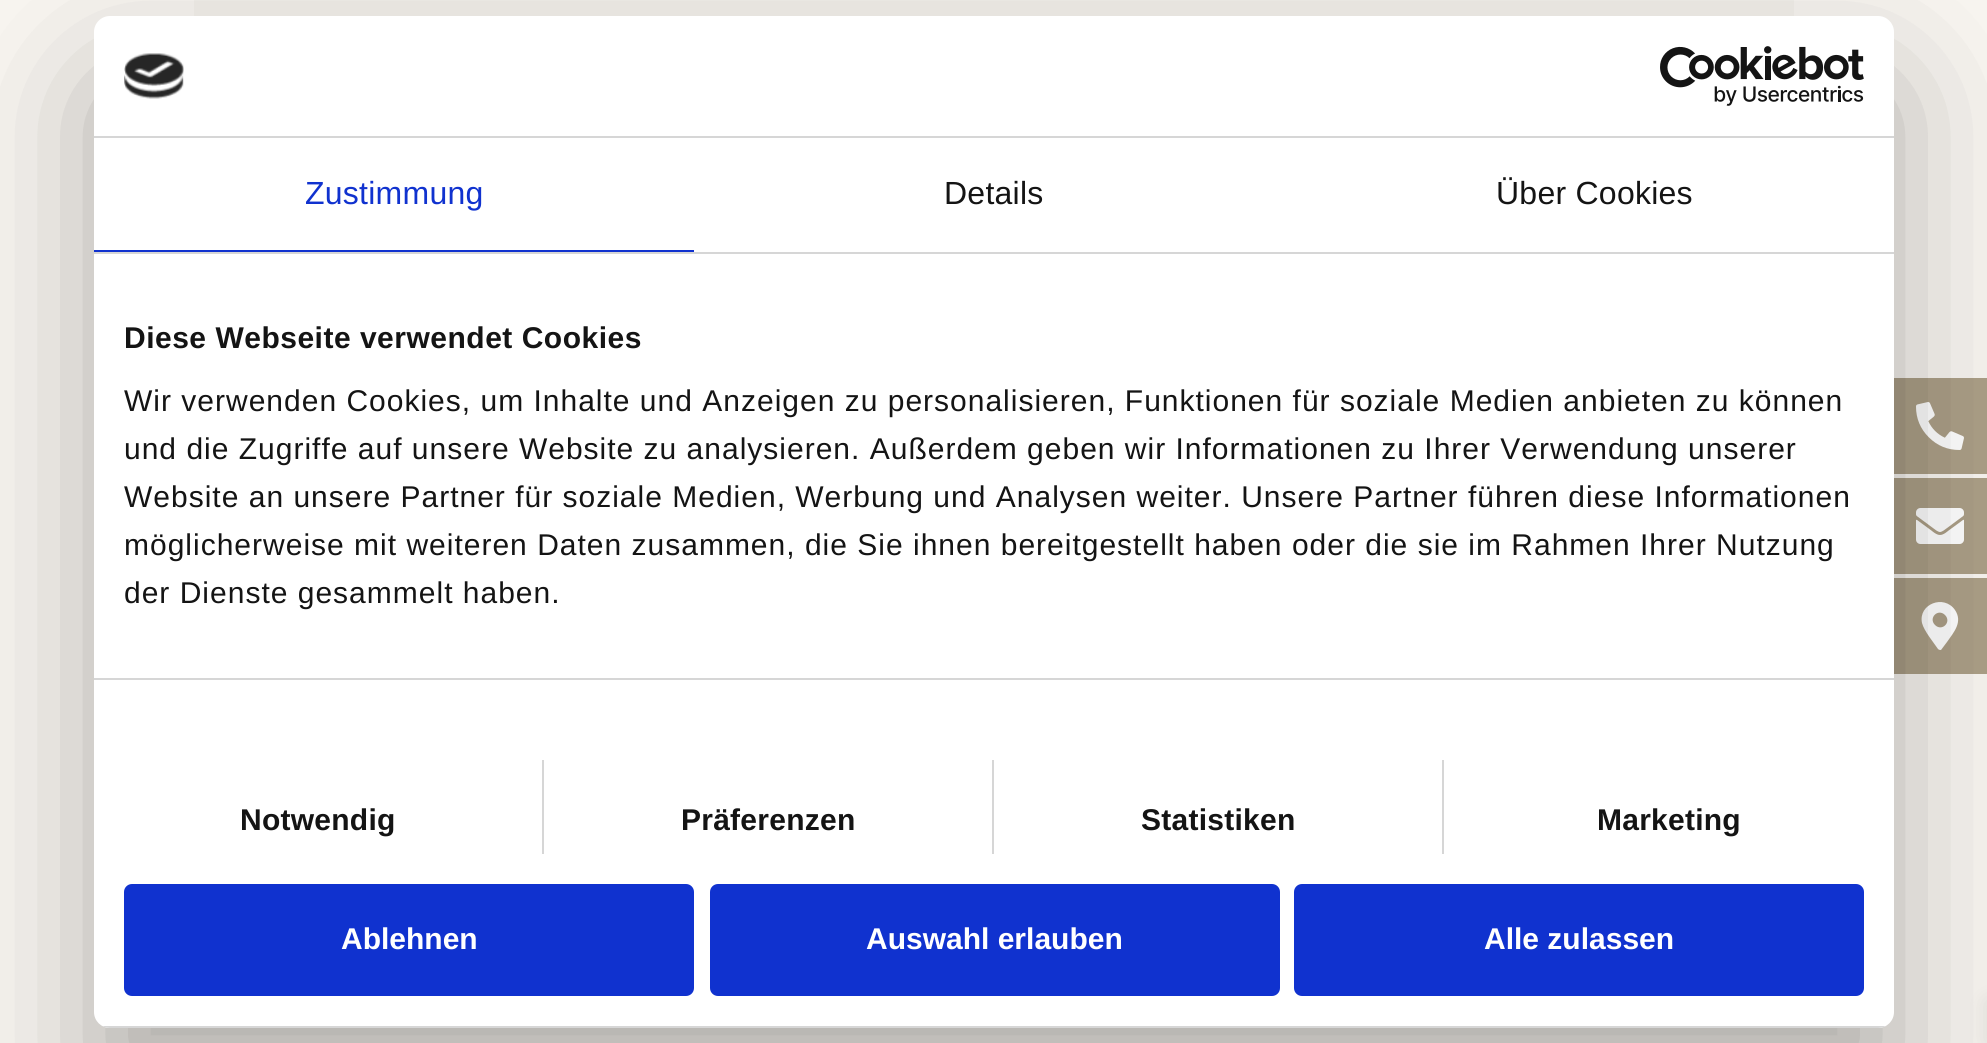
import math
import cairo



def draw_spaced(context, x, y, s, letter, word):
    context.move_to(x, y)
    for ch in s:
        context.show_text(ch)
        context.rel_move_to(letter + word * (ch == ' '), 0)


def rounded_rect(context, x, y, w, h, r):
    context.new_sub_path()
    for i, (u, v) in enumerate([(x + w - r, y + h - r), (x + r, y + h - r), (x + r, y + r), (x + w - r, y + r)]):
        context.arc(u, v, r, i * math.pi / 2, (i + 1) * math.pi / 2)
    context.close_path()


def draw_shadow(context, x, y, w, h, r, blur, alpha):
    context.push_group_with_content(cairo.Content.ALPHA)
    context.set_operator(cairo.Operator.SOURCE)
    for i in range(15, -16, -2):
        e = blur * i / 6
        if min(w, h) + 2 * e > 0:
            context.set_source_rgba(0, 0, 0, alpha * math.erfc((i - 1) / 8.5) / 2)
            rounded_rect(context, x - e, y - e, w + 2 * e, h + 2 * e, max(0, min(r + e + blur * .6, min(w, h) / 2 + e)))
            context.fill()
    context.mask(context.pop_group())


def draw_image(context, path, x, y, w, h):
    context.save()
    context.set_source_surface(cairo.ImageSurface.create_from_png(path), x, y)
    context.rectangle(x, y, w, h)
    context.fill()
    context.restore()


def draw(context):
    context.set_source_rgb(248 / 255, 245 / 255, 240 / 255)
    context.paint()
    context.set_source_rgb(242 / 255, 239 / 255, 234 / 255)
    context.rectangle(194, 0, 1600, 16)
    context.fill()
    context.set_source_rgb(172 / 255, 159 / 255, 135 / 255)
    context.rectangle(1894, 378, 93, 96)
    context.fill()
    draw_image(context, "images/3.png", 1916, 402, 48, 48)
    context.rectangle(1894, 478, 93, 96)
    context.fill()
    draw_image(context, "images/4.png", 1916, 508, 48, 36)
    context.rectangle(1894, 578, 93, 96)
    context.fill()
    context.set_source_rgb(1, 1, 1)
    context.new_path()
    context.move_to(1938, 649)
    context.curve_to(1934, 643, 1924, 631, 1922, 623)
    context.curve_to(1918, 604, 1944, 594, 1955, 610)
    context.curve_to(1963, 622, 1954, 632, 1947, 642)
    context.line_to(1941, 650)
    context.curve_to(1940, 650, 1939, 650, 1938, 649)
    context.close_path()
    context.move_to(1935, 625)
    context.curve_to(1942, 632, 1952, 622, 1945, 615)
    context.curve_to(1938, 608, 1928, 618, 1935, 625)
    context.close_path()
    context.fill()
    context.set_source_rgb(0, 0, 0)
    draw_shadow(context, 94, 80, 1800, 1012, 16, 68, 0.3)
    context.set_source_rgb(1, 1, 1)
    rounded_rect(context, 94, 16, 1800, 1012, 16)
    context.fill()
    context.set_source_rgb(214 / 255, 214 / 255, 214 / 255)
    context.rectangle(94, 136, 1800, 2)
    context.fill()
    draw_image(context, "images/1.png", 124, 53, 60, 46)
    draw_image(context, "images/2.png", 1660, 46, 204, 60)
    context.rectangle(94, 252, 1800, 2)
    context.fill()
    context.set_source_rgb(16 / 255, 50 / 255, 207 / 255)
    context.rectangle(94, 250, 600, 2)
    context.fill()
    context.set_source_rgb(214 / 255, 214 / 255, 214 / 255)
    context.rectangle(94, 678, 1800, 2)
    context.fill()
    context.rectangle(542, 760, 2, 94)
    context.fill()
    context.rectangle(992, 760, 2, 94)
    context.fill()
    context.rectangle(1442, 760, 2, 94)
    context.fill()
    context.save()
    rounded_rect(context, 94, 16, 1800, 1012, 16)
    context.clip()
    context.rectangle(94, 1026, 1800, 2)
    context.fill()
    context.restore()
    context.set_source_rgb(16 / 255, 50 / 255, 207 / 255)
    rounded_rect(context, 126, 886, 566, 108, 6)
    context.fill_preserve()
    context.set_line_width(4)
    context.stroke()
    rounded_rect(context, 712, 886, 566, 108, 6)
    context.fill_preserve()
    context.stroke()
    rounded_rect(context, 1296, 886, 566, 108, 6)
    context.fill_preserve()
    context.stroke()
    context.set_source_rgb(0, 0, 0)
    draw_shadow(context, 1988, 1002, 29, 40, 0, 10, 0.1)
    context.select_font_face("Liberation Sans")
    context.set_font_size(32)
    context.set_source_rgb(16 / 255, 50 / 255, 207 / 255)
    draw_spaced(context, 305, 204, "Zustimmung", 0.25, 0)
    context.set_source_rgb(20 / 255, 20 / 255, 20 / 255)
    draw_spaced(context, 944, 204, "Details", 0.25, 0)
    draw_spaced(context, 1496, 204, "Über Cookies", 0.25, 0)
    context.select_font_face("Liberation Sans", cairo.FontSlant.NORMAL, cairo.FontWeight.BOLD)
    context.set_font_size(30)
    draw_spaced(context, 124, 348, "Diese Webseite verwendet Cookies", 0.5, 0)
    context.select_font_face("Liberation Sans")
    draw_spaced(context, 124, 411, "Wir verwenden Cookies, um Inhalte und Anzeigen zu personalisieren, Funktionen für soziale Medien anbieten zu können", 1, 0)
    draw_spaced(context, 124, 459, "und die Zugriffe auf unsere Website zu analysieren. Außerdem geben wir Informationen zu Ihrer Verwendung unserer", 1, 0)
    draw_spaced(context, 124, 507, "Website an unsere Partner für soziale Medien, Werbung und Analysen weiter. Unsere Partner führen diese Informationen", 1, 0)
    draw_spaced(context, 124, 555, "möglicherweise mit weiteren Daten zusammen, die Sie ihnen bereitgestellt haben oder die sie im Rahmen Ihrer Nutzung", 1, 0)
    draw_spaced(context, 124, 603, "der Dienste gesammelt haben.", 1, 0)
    context.select_font_face("Liberation Sans", cairo.FontSlant.NORMAL, cairo.FontWeight.BOLD)
    draw_spaced(context, 240, 830, "Notwendig", 0.25, 0)
    draw_spaced(context, 681, 830, "Präferenzen", 0.25, 0)
    draw_spaced(context, 1141, 830, "Statistiken", 0.25, 0)
    draw_spaced(context, 1597, 830, "Marketing", 0.25, 0)
    context.set_source_rgb(1, 1, 1)
    context.move_to(341, 949)
    context.show_text("Ablehnen")
    context.move_to(866, 949)
    context.show_text("Auswahl erlauben")
    context.move_to(1484, 949)
    context.show_text("Alle zulassen")


surface = cairo.ImageSurface(cairo.Format.RGB24, 1987, 1043)
context = cairo.Context(surface)
options = cairo.FontOptions()
options.set_hint_metrics(cairo.HintMetrics.OFF)
options.set_hint_style(cairo.HintStyle.NONE)
context.set_font_options(options)
context.set_miter_limit(4)
draw(context)
surface.write_to_png("out.png")
